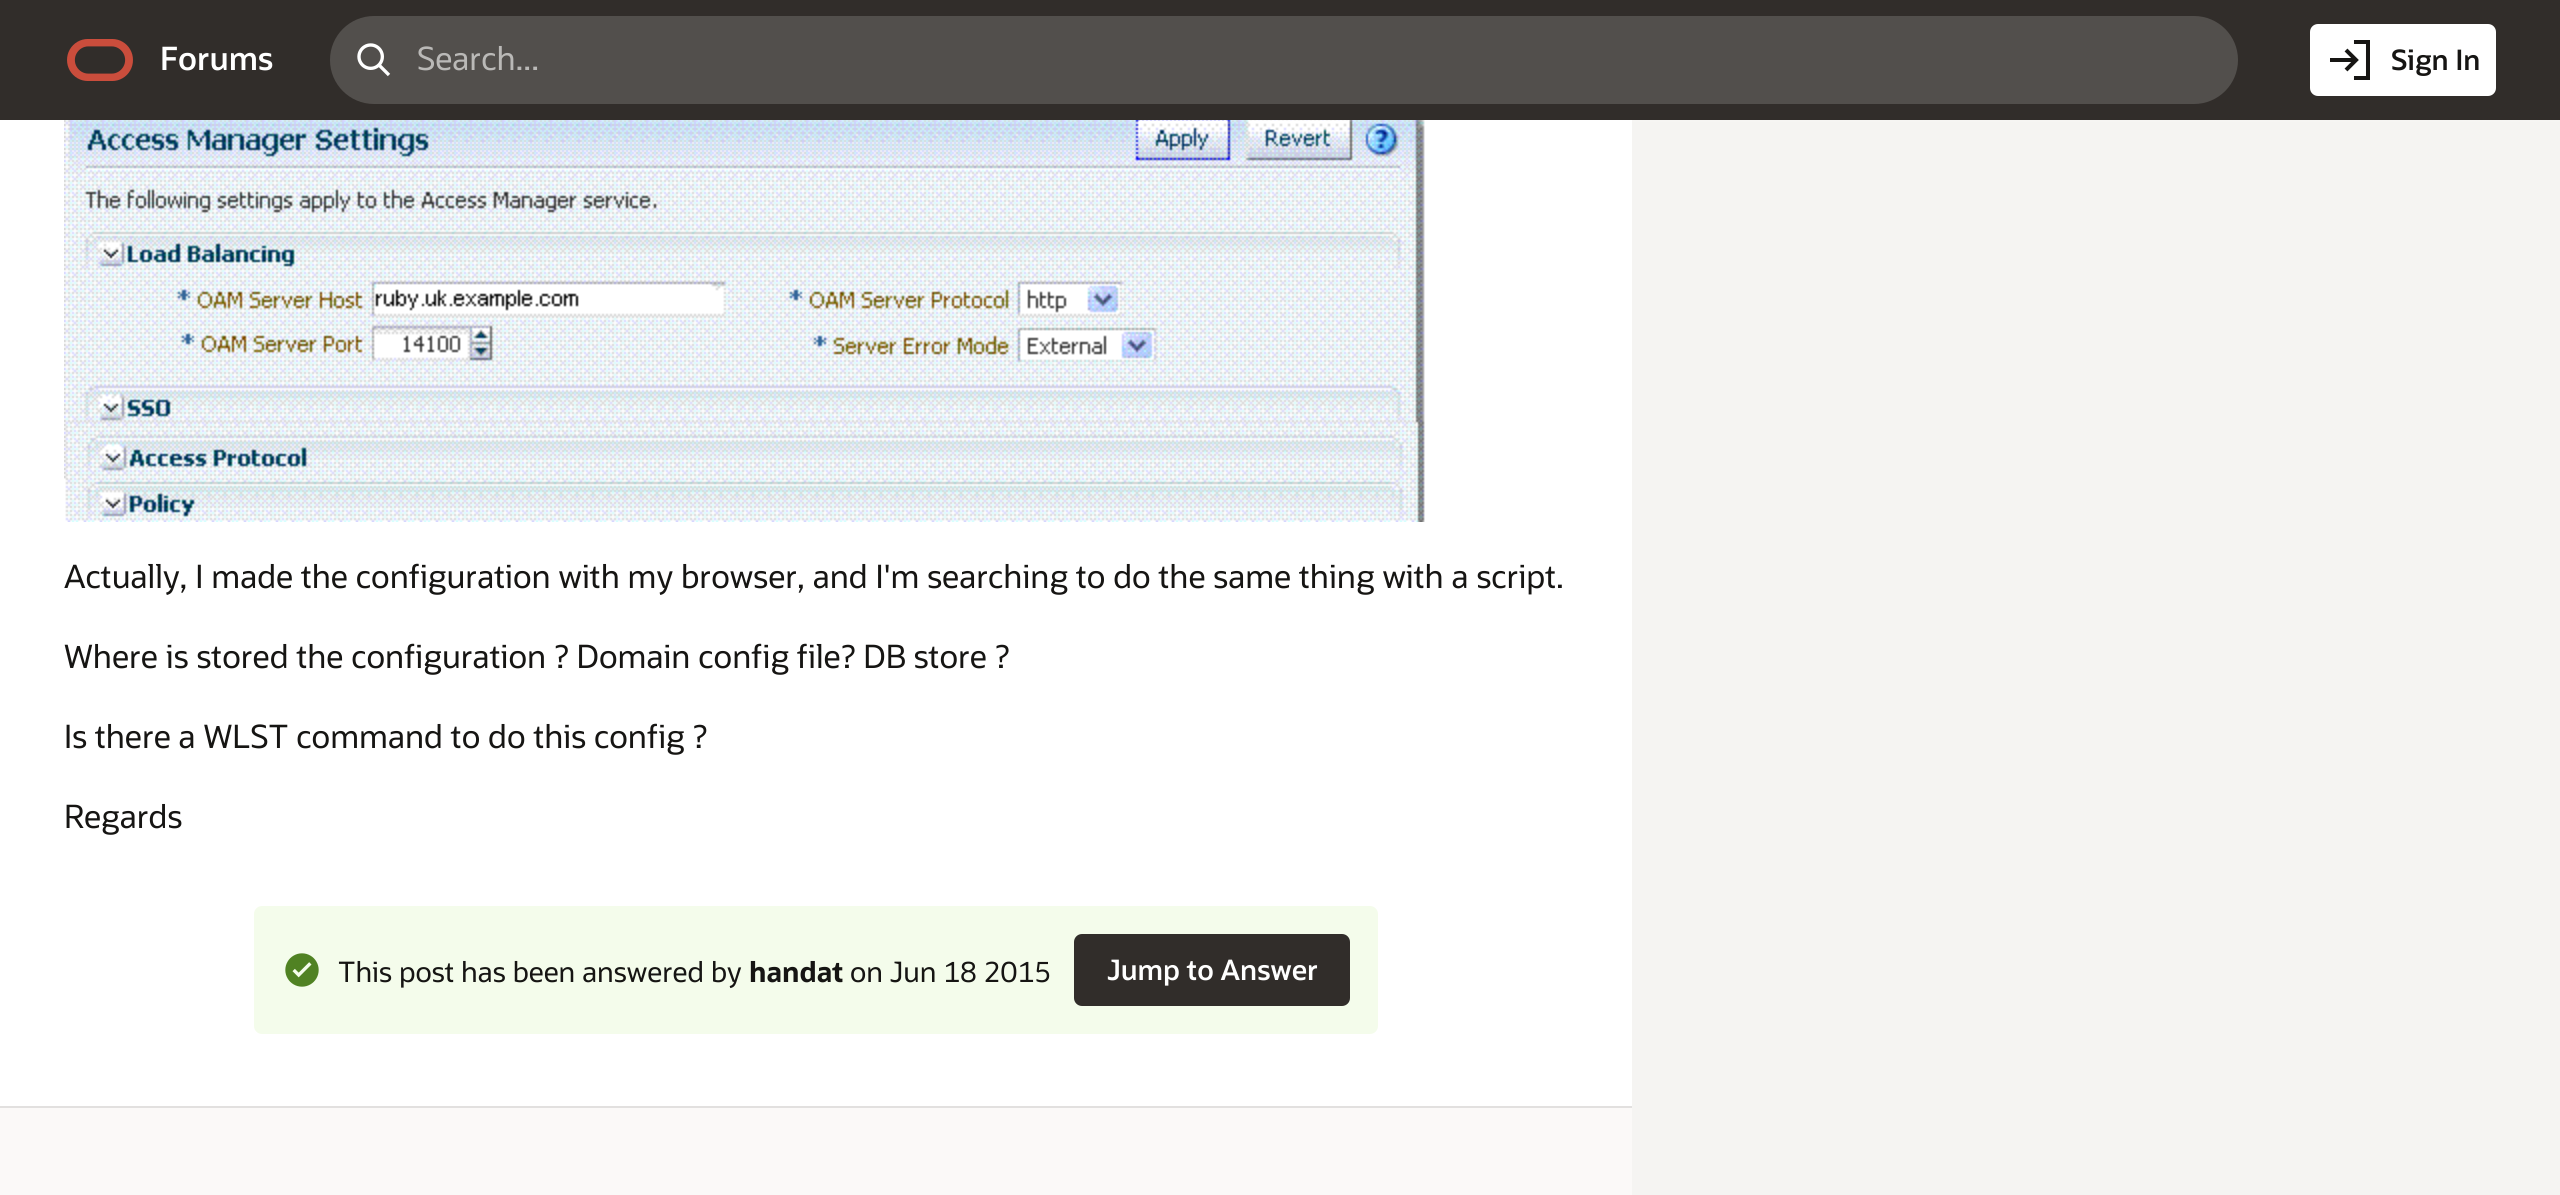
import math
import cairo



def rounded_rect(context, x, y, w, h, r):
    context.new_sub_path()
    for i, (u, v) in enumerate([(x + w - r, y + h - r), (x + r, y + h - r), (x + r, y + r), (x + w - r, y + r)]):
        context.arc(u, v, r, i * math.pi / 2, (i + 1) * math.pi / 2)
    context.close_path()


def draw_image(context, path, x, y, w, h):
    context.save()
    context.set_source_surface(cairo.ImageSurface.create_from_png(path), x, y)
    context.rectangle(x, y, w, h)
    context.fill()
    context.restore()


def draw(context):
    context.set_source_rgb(251 / 255, 249 / 255, 248 / 255)
    context.paint()
    context.set_source_rgb(1, 1, 1)
    context.rectangle(0, 120, 1632, 986)
    context.fill()
    draw_image(context, "images/4.png", 64, 120, 1361, 402)
    context.set_source_rgb(245 / 255, 244 / 255, 242 / 255)
    context.rectangle(1632, 120, 928, 1075)
    context.fill()
    context.rectangle(-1, -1, 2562, 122)
    context.set_source_rgba(1, 1, 1, 0.1)
    context.stroke()
    context.set_source_rgb(49 / 255, 45 / 255, 42 / 255)
    context.rectangle(0, 0, 2560, 120)
    context.fill()
    draw_image(context, "images/1.png", 67, 39, 66, 42)
    context.set_source_rgb(82 / 255, 79 / 255, 76 / 255)
    rounded_rect(context, 330, 16, 1908, 88, 44)
    context.fill()
    draw_image(context, "images/2.png", 357, 43, 34, 34)
    context.set_source_rgb(1, 1, 1)
    rounded_rect(context, 2310, 24, 186, 72, 8)
    context.fill()
    draw_image(context, "images/3.png", 2330, 40, 40, 40)
    context.set_source_rgb(244 / 255, 252 / 255, 235 / 255)
    rounded_rect(context, 254, 906, 1124, 128, 8)
    context.fill()
    draw_image(context, "images/5.png", 285, 953, 34, 34)
    context.set_source_rgb(49 / 255, 45 / 255, 42 / 255)
    rounded_rect(context, 1074, 934, 276, 72, 8)
    context.fill()
    context.set_source_rgb(226 / 255, 224 / 255, 223 / 255)
    context.rectangle(0, 1106, 1632, 2)
    context.fill()
    context.select_font_face("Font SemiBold")
    context.set_font_size(32)
    context.set_source_rgb(1, 1, 1)
    context.move_to(160, 70)
    context.show_text("Forums")
    context.select_font_face("Font")
    context.set_source_rgb(186 / 255, 185 / 255, 183 / 255)
    context.move_to(417, 70)
    context.show_text("Search...")
    context.select_font_face("Font SemiBold")
    context.set_font_size(28)
    context.set_source_rgb(22 / 255, 21 / 255, 19 / 255)
    context.move_to(2391, 70)
    context.show_text("Sign In")
    context.select_font_face("Font")
    context.set_font_size(32)
    context.move_to(64, 588)
    context.show_text("Actually, I made the configuration with my browser, and I'm searching to do the same thing with a script.")
    context.move_to(64, 668)
    context.show_text("Where is stored the configuration ? Domain config file? DB store ?")
    context.move_to(64, 748)
    context.show_text("Is there a WLST command to do this config ?")
    context.move_to(64, 828)
    context.show_text("Regards")
    context.set_font_size(28)
    context.move_to(338, 982)
    context.show_text("This post has been answered by")
    context.select_font_face("Font", cairo.FontSlant.NORMAL, cairo.FontWeight.BOLD)
    context.move_to(749, 982)
    context.show_text("handat")
    context.select_font_face("Font")
    context.move_to(850, 982)
    context.show_text("on Jun 18 2015")
    context.select_font_face("Font SemiBold")
    context.set_source_rgb(1, 1, 1)
    context.move_to(1107, 980)
    context.show_text("Jump to Answer")


surface = cairo.ImageSurface(cairo.Format.RGB24, 2560, 1195)
context = cairo.Context(surface)
options = cairo.FontOptions()
options.set_hint_metrics(cairo.HintMetrics.OFF)
options.set_hint_style(cairo.HintStyle.NONE)
context.set_font_options(options)
context.set_miter_limit(4)
draw(context)
surface.write_to_png("out.png")
